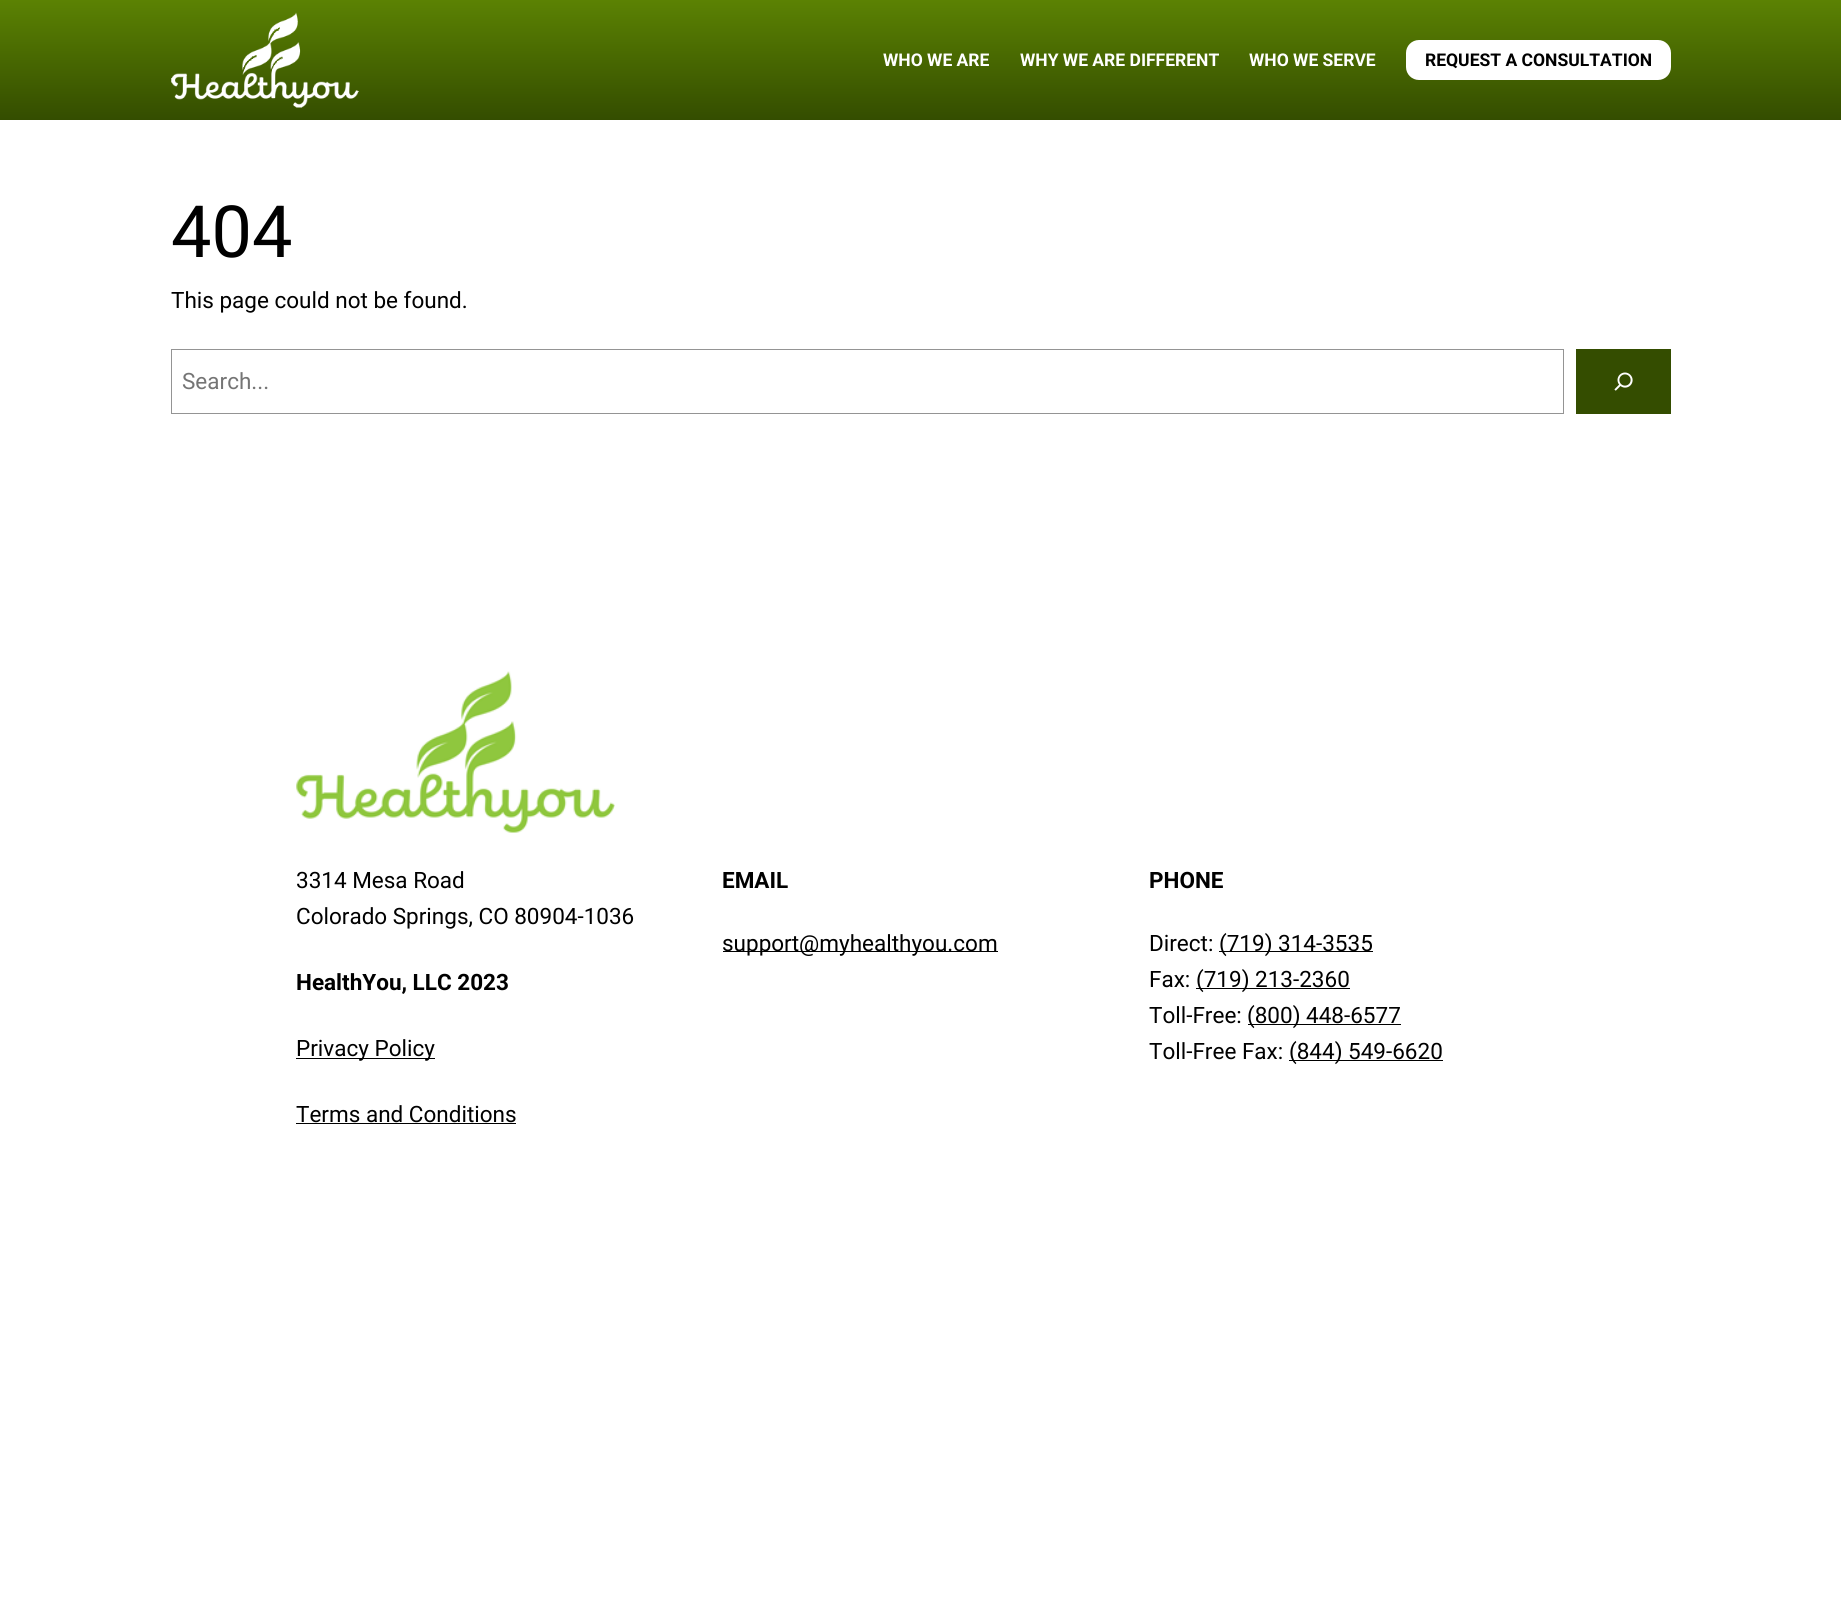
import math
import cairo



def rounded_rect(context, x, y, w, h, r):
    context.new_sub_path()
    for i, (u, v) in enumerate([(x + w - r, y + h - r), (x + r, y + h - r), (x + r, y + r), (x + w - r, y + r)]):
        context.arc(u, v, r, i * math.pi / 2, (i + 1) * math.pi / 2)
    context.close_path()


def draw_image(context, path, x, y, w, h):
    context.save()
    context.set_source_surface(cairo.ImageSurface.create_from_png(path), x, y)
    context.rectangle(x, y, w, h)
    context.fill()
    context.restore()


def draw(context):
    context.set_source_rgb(1, 1, 1)
    context.paint()
    gradient = cairo.LinearGradient(921, 120, 921, 0)
    gradient.add_color_stop_rgba(0, 52 / 255, 77 / 255, 0, 1)
    gradient.add_color_stop_rgba(0.51, 72 / 255, 104 / 255, 1 / 255, 1)
    gradient.add_color_stop_rgba(1, 91 / 255, 130 / 255, 3 / 255, 1)
    context.set_source(gradient)
    context.rectangle(0, 0, 1841, 120)
    context.fill()
    draw_image(context, "images/1.png", 171, 12, 188, 96)
    context.set_source_rgb(1, 1, 1)
    rounded_rect(context, 1406, 40, 265, 40, 13)
    context.fill()
    context.rectangle(171.5, 349.5, 1392, 64)
    context.set_source_rgb(148 / 255, 148 / 255, 148 / 255)
    context.set_line_width(1)
    context.stroke()
    context.set_source_rgb(52 / 255, 77 / 255, 0)
    context.rectangle(1576, 349, 95, 65)
    context.fill()
    draw_image(context, "images/2.png", 1614, 372, 19, 19)
    draw_image(context, "images/3.png", 296, 671, 319, 162)
    context.set_source_rgb(0, 0, 0)
    context.rectangle(296, 1058, 139, 1)
    context.fill()
    context.rectangle(296, 1123, 220, 1)
    context.fill()
    context.rectangle(723, 951, 275, 1)
    context.fill()
    context.rectangle(1219, 951, 154, 1)
    context.fill()
    context.rectangle(1196, 988, 154, 1)
    context.fill()
    context.rectangle(1248, 1024, 153, 1)
    context.fill()
    context.rectangle(1289, 1060, 154, 1)
    context.fill()
    context.select_font_face("Roboto", cairo.FontSlant.NORMAL, cairo.FontWeight.BOLD)
    context.set_font_size(17.5)
    context.set_source_rgb(1, 1, 1)
    context.move_to(883, 66)
    context.show_text("WHO WE ARE")
    context.move_to(1020, 66)
    context.show_text("WHY WE ARE DIFFERENT")
    context.move_to(1249, 66)
    context.show_text("WHO WE SERVE")
    context.set_source_rgb(0, 0, 0)
    context.move_to(1425, 66)
    context.show_text("REQUEST A CONSULTATION")
    context.select_font_face("Roboto")
    context.set_font_size(72)
    context.move_to(171, 257)
    context.show_text("404")
    context.set_font_size(22.5)
    context.move_to(171, 308)
    context.show_text("This page could not be found.")
    context.set_source_rgb(117 / 255, 117 / 255, 117 / 255)
    context.move_to(182, 389)
    context.show_text("Search...")
    context.set_source_rgb(0, 0, 0)
    context.move_to(296, 888)
    context.show_text("3314 Mesa Road")
    context.move_to(296, 924)
    context.show_text("Colorado Springs, CO 80904-1036")
    context.select_font_face("Roboto", cairo.FontSlant.NORMAL, cairo.FontWeight.BOLD)
    context.move_to(296, 990)
    context.show_text("HealthYou, LLC 2023")
    context.select_font_face("Roboto")
    context.move_to(296, 1056)
    context.show_text("Privacy Policy")
    context.move_to(296, 1122)
    context.show_text("Terms and Conditions")
    context.select_font_face("Roboto", cairo.FontSlant.NORMAL, cairo.FontWeight.BOLD)
    context.move_to(722, 888)
    context.show_text("EMAIL")
    context.select_font_face("Roboto")
    context.move_to(722, 951)
    context.show_text("support@myhealthyou.com")
    context.select_font_face("Roboto", cairo.FontSlant.NORMAL, cairo.FontWeight.BOLD)
    context.move_to(1149, 888)
    context.show_text("PHONE")
    context.select_font_face("Roboto")
    context.move_to(1149, 951)
    context.show_text("Direct:")
    context.move_to(1219, 951)
    context.show_text("(719) 314-3535")
    context.move_to(1149, 987)
    context.show_text("Fax:")
    context.move_to(1196, 987)
    context.show_text("(719) 213-2360")
    context.move_to(1149, 1023)
    context.show_text("Toll-Free:")
    context.move_to(1247, 1023)
    context.show_text("(800) 448-6577")
    context.move_to(1149, 1059)
    context.show_text("Toll-Free Fax:")
    context.move_to(1289, 1059)
    context.show_text("(844) 549-6620")


surface = cairo.ImageSurface(cairo.Format.RGB24, 1841, 1614)
context = cairo.Context(surface)
options = cairo.FontOptions()
options.set_hint_metrics(cairo.HintMetrics.OFF)
options.set_hint_style(cairo.HintStyle.NONE)
context.set_font_options(options)
context.set_miter_limit(4)
draw(context)
surface.write_to_png("out.png")
